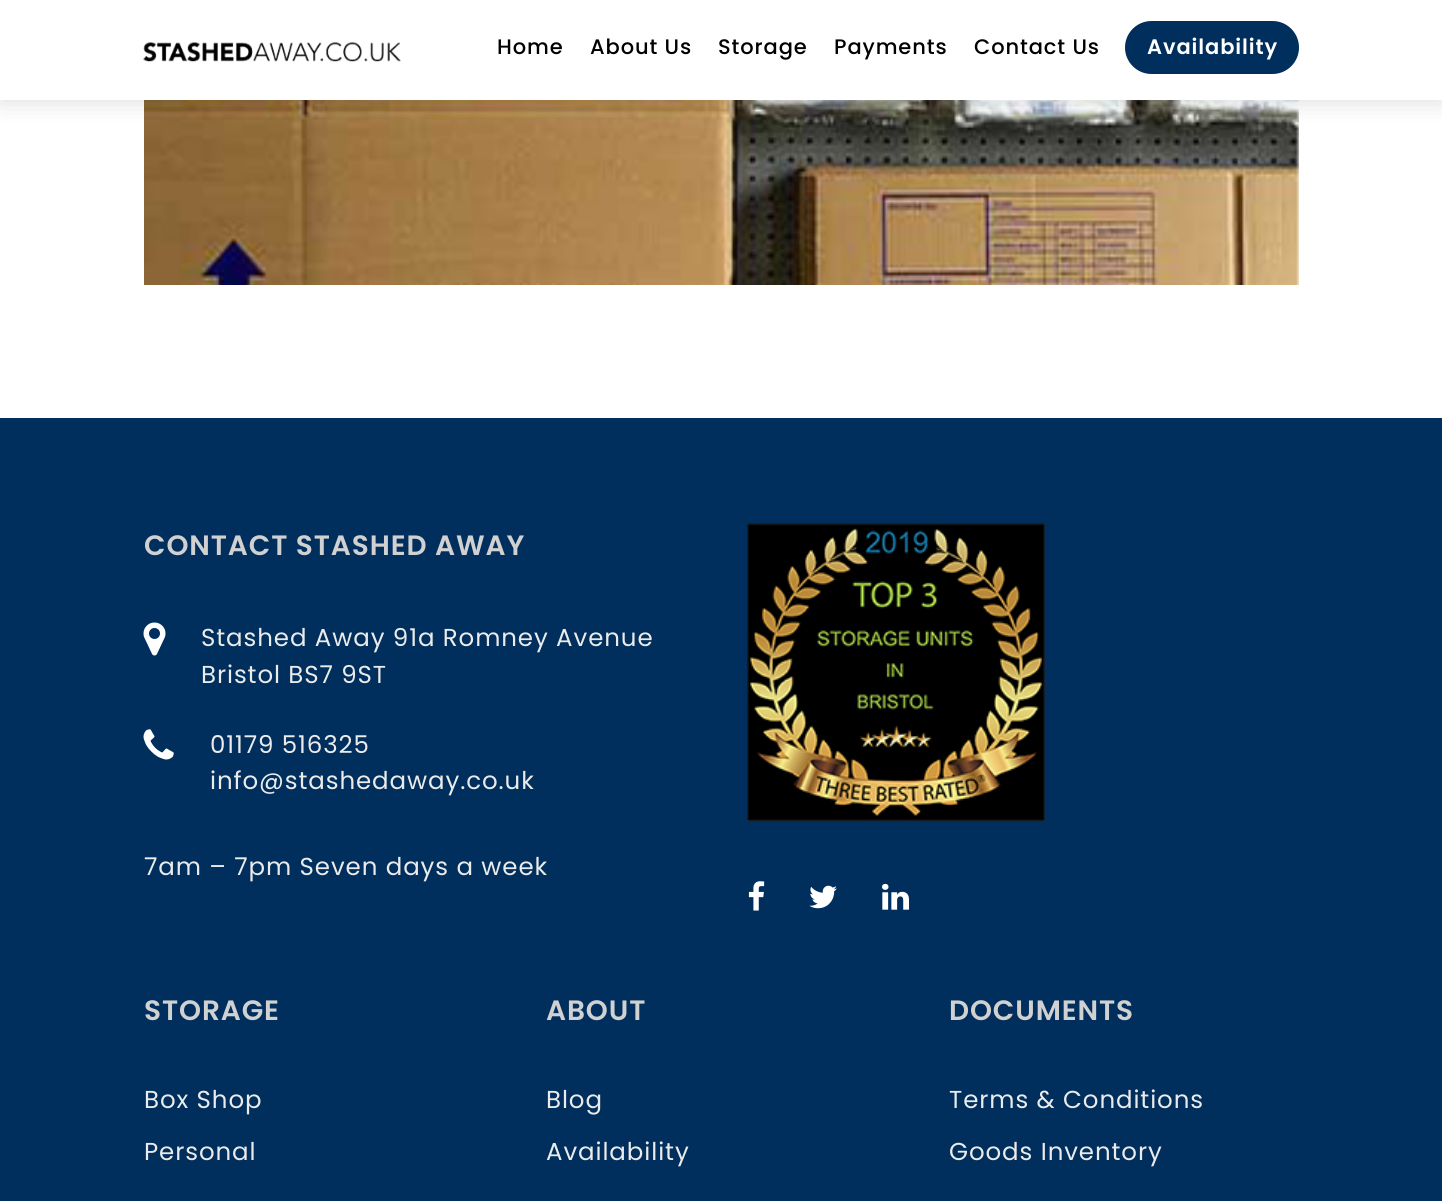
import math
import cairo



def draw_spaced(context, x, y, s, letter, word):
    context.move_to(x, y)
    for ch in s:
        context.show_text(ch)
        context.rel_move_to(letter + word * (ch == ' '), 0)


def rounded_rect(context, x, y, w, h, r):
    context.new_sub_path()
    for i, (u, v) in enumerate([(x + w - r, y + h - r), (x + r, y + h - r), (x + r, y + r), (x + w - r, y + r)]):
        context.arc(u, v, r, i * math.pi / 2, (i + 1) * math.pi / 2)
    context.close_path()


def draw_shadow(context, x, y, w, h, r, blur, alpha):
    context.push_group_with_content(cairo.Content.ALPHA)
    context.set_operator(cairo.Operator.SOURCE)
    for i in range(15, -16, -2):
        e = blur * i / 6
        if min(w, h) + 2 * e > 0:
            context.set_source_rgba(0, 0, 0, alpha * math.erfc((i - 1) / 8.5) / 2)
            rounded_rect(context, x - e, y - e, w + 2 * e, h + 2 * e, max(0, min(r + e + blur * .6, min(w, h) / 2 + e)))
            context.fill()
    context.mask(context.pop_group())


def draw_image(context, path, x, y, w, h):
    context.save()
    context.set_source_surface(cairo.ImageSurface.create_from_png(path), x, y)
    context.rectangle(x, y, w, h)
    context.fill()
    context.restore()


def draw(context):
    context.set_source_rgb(1, 1, 1)
    context.paint()
    draw_image(context, "images/2.png", 144, 100, 1155, 185)
    context.set_source_rgb(0, 0, 0)
    draw_shadow(context, 0, 0, 1442, 100, 0, 13, 0.15)
    context.set_source_rgb(1, 1, 1)
    context.rectangle(0, 0, 1442, 100)
    context.fill()
    draw_image(context, "images/1.png", 143, 42, 258, 20)
    context.set_source_rgb(0, 46 / 255, 93 / 255)
    rounded_rect(context, 1127, 23, 170, 49, 24.5)
    context.fill_preserve()
    context.set_line_width(4)
    context.stroke()
    context.set_source_rgb(0, 47 / 255, 93 / 255)
    context.rectangle(0, 418, 1442, 783)
    context.fill()
    draw_image(context, "images/3.png", 143, 622, 23, 34)
    draw_image(context, "images/4.png", 143, 729, 31, 31)
    draw_image(context, "images/5.png", 747, 523, 298, 298)
    draw_image(context, "images/6.png", 748, 881, 17, 30)
    draw_image(context, "images/7.png", 809, 885, 28, 24)
    draw_image(context, "images/8.png", 882, 883, 27, 27)
    context.select_font_face("Poppins Medium")
    context.set_font_size(21)
    context.set_source_rgb(0, 0, 0)
    draw_spaced(context, 497, 54, "Home", 0.9, 0)
    draw_spaced(context, 590, 54, "About Us", 0.9, 0)
    draw_spaced(context, 718, 54, "Storage", 0.9, 0)
    draw_spaced(context, 834, 54, "Payments", 0.9, 0)
    draw_spaced(context, 974, 54, "Contact Us", 0.9, 0)
    context.select_font_face("Poppins SemiBold")
    context.set_source_rgb(1, 1, 1)
    draw_spaced(context, 1147, 54, "Availability", 0.9, 0)
    context.set_font_size(28)
    context.set_source_rgb(209 / 255, 209 / 255, 209 / 255)
    draw_spaced(context, 144, 555, "CONTACT STASHED AWAY", 0.9, 0)
    context.select_font_face("Poppins")
    context.set_font_size(24.5)
    context.set_source_rgb(235 / 255, 235 / 255, 235 / 255)
    draw_spaced(context, 201, 646, "Stashed Away 91a Romney Avenue", 0.9, 0)
    draw_spaced(context, 201, 683, "Bristol BS7 9ST", 0.9, 0)
    draw_spaced(context, 210, 753, "01179 516325", 0.9, 0)
    draw_spaced(context, 210, 789, "info@stashedaway.co.uk", 0.9, 0)
    draw_spaced(context, 144, 875, "7am – 7pm Seven days a week", 0.9, 0)
    context.select_font_face("Poppins SemiBold")
    context.set_font_size(28)
    context.set_source_rgb(209 / 255, 209 / 255, 209 / 255)
    draw_spaced(context, 144, 1020, "STORAGE", 0.9, 0)
    context.select_font_face("Poppins")
    context.set_font_size(24.5)
    context.set_source_rgb(235 / 255, 235 / 255, 235 / 255)
    draw_spaced(context, 144, 1108, "Box Shop", 0.9, 0)
    draw_spaced(context, 144, 1160, "Personal", 0.9, 0)
    context.select_font_face("Poppins SemiBold")
    context.set_font_size(28)
    context.set_source_rgb(209 / 255, 209 / 255, 209 / 255)
    draw_spaced(context, 546, 1020, "ABOUT", 0.9, 0)
    context.select_font_face("Poppins")
    context.set_font_size(24.5)
    context.set_source_rgb(235 / 255, 235 / 255, 235 / 255)
    draw_spaced(context, 546, 1108, "Blog", 0.9, 0)
    draw_spaced(context, 546, 1160, "Availability", 0.9, 0)
    context.select_font_face("Poppins SemiBold")
    context.set_font_size(28)
    context.set_source_rgb(209 / 255, 209 / 255, 209 / 255)
    draw_spaced(context, 949, 1020, "DOCUMENTS", 0.9, 0)
    context.select_font_face("Poppins")
    context.set_font_size(24.5)
    context.set_source_rgb(235 / 255, 235 / 255, 235 / 255)
    draw_spaced(context, 949, 1108, "Terms & Conditions", 0.9, 0)
    draw_spaced(context, 949, 1160, "Goods Inventory", 0.9, 0)


surface = cairo.ImageSurface(cairo.Format.RGB24, 1442, 1201)
context = cairo.Context(surface)
options = cairo.FontOptions()
options.set_hint_metrics(cairo.HintMetrics.OFF)
options.set_hint_style(cairo.HintStyle.NONE)
context.set_font_options(options)
context.set_miter_limit(4)
draw(context)
surface.write_to_png("out.png")
